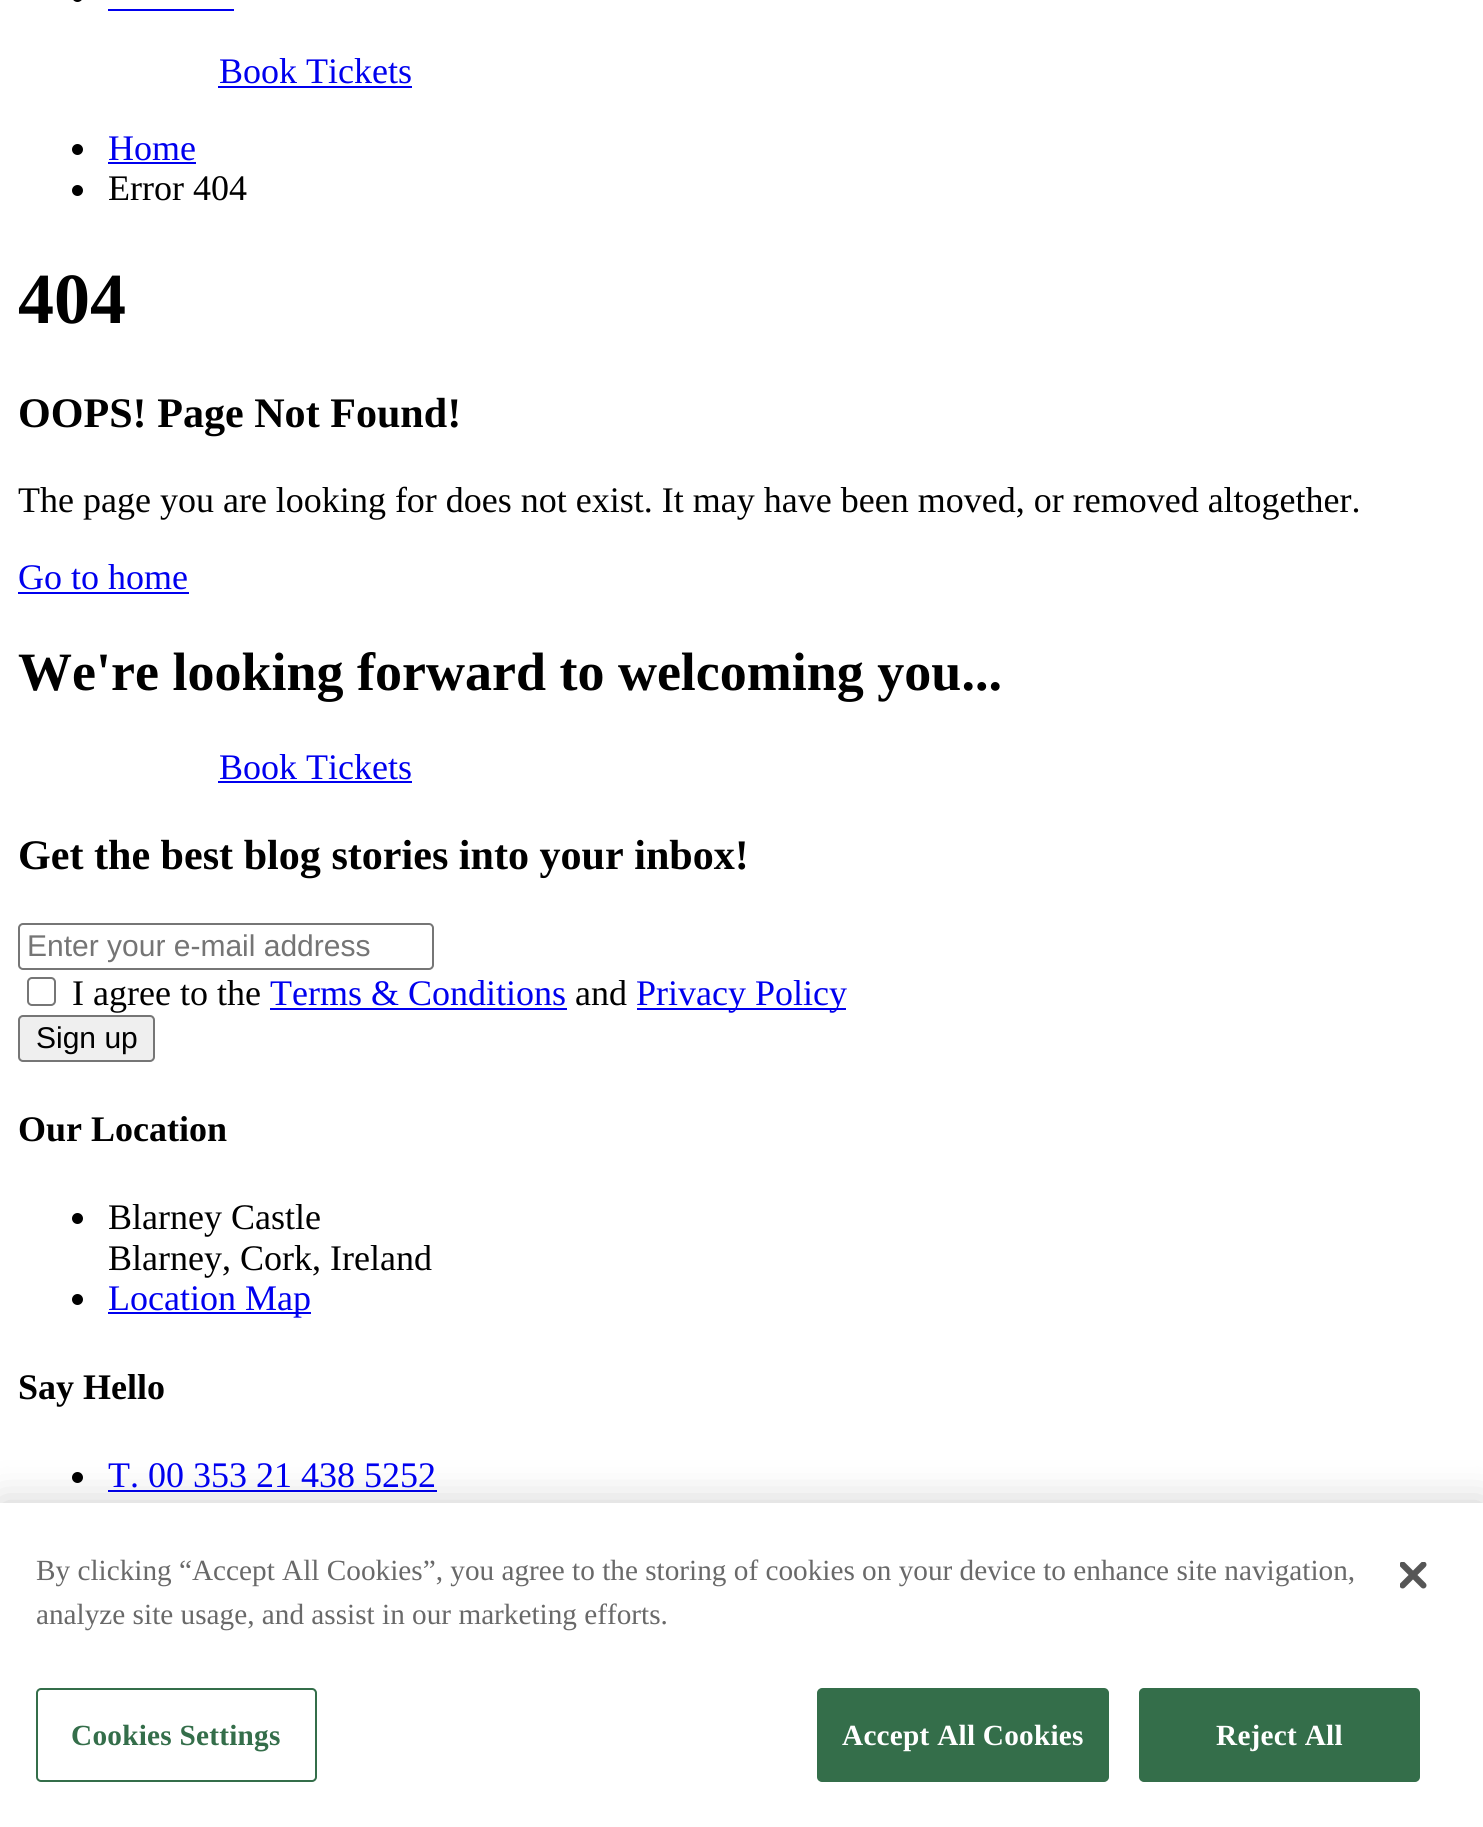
import math
import cairo



def draw_spaced(context, x, y, s, letter, word):
    context.move_to(x, y)
    for ch in s:
        context.show_text(ch)
        context.rel_move_to(letter + word * (ch == ' '), 0)


def rounded_rect(context, x, y, w, h, r):
    context.new_sub_path()
    for i, (u, v) in enumerate([(x + w - r, y + h - r), (x + r, y + h - r), (x + r, y + r), (x + w - r, y + r)]):
        context.arc(u, v, r, i * math.pi / 2, (i + 1) * math.pi / 2)
    context.close_path()


def draw_shadow(context, x, y, w, h, r, blur, alpha):
    context.push_group_with_content(cairo.Content.ALPHA)
    context.set_operator(cairo.Operator.SOURCE)
    for i in range(15, -16, -2):
        e = blur * i / 6
        if min(w, h) + 2 * e > 0:
            context.set_source_rgba(0, 0, 0, alpha * math.erfc((i - 1) / 8.5) / 2)
            rounded_rect(context, x - e, y - e, w + 2 * e, h + 2 * e, max(0, min(r + e + blur * .6, min(w, h) / 2 + e)))
            context.fill()
    context.mask(context.pop_group())


def draw_image(context, path, x, y, w, h):
    context.save()
    context.set_source_surface(cairo.ImageSurface.create_from_png(path), x, y)
    context.rectangle(x, y, w, h)
    context.fill()
    context.restore()


def draw(context):
    context.set_source_rgb(1, 1, 1)
    context.paint()
    context.set_source_rgb(0, 0, 0)
    rounded_rect(context, 72, -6, 11, 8, 5.5)
    context.fill()
    context.set_source_rgb(0, 0, 238 / 255)
    context.rectangle(108, 9, 126, 2)
    context.fill()
    context.rectangle(218, 86, 194, 2)
    context.fill()
    context.set_source_rgb(0, 0, 0)
    context.arc(77.5, 149.5, 5.5, 0, 2 * math.pi)
    context.fill()
    context.set_source_rgb(0, 0, 238 / 255)
    context.rectangle(108, 162, 88, 2)
    context.fill()
    context.set_source_rgb(0, 0, 0)
    context.arc(77.5, 190.5, 5.5, 0, 2 * math.pi)
    context.fill()
    context.set_source_rgb(0, 0, 238 / 255)
    context.rectangle(18, 592, 171, 2)
    context.fill()
    context.rectangle(218, 781, 194, 2)
    context.fill()
    rounded_rect(context, 19, 924, 414, 45, 4)
    context.set_source_rgb(118 / 255, 118 / 255, 118 / 255)
    context.stroke()
    rounded_rect(context, 28, 978, 27, 27, 4)
    context.stroke()
    context.set_source_rgb(0, 0, 238 / 255)
    context.rectangle(270, 1008, 297, 2)
    context.fill()
    context.rectangle(637, 1008, 209, 2)
    context.fill()
    context.set_source_rgb(239 / 255, 239 / 255, 239 / 255)
    rounded_rect(context, 19, 1016, 135, 45, 4)
    context.fill_preserve()
    context.set_source_rgb(118 / 255, 118 / 255, 118 / 255)
    context.stroke()
    context.set_source_rgb(0, 0, 0)
    context.arc(77.5, 1218.5, 5.5, 0, 2 * math.pi)
    context.fill()
    context.arc(77.5, 1299.5, 5.5, 0, 2 * math.pi)
    context.fill()
    context.set_source_rgb(0, 0, 238 / 255)
    context.rectangle(108, 1312, 203, 2)
    context.fill()
    context.set_source_rgb(0, 0, 0)
    context.arc(77.5, 1477.5, 5.5, 0, 2 * math.pi)
    context.fill()
    context.set_source_rgb(0, 0, 238 / 255)
    context.rectangle(108, 1490, 329, 2)
    context.fill()
    context.set_source_rgb(0, 0, 0)
    draw_shadow(context, 0, 1503, 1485, 324, 0, 20, 0.2)
    context.set_source_rgb(1, 1, 1)
    context.rectangle(0, 1503, 1483, 324)
    context.fill()
    rounded_rect(context, 37, 1689, 279, 92, 4)
    context.set_source_rgb(52 / 255, 110 / 255, 74 / 255)
    context.stroke()
    rounded_rect(context, 818, 1689, 290, 92, 4)
    context.fill_preserve()
    context.stroke()
    rounded_rect(context, 1140, 1689, 279, 92, 4)
    context.fill_preserve()
    context.stroke()
    draw_image(context, "images/1.png", 1400, 1562, 27, 27)
    context.select_font_face("Liberation Serif")
    context.set_font_size(36)
    context.set_source_rgb(0, 0, 238 / 255)
    context.move_to(219, 83)
    context.show_text("Book Tickets")
    context.move_to(108, 160)
    context.show_text("Home")
    context.set_source_rgb(0, 0, 0)
    context.move_to(108, 200)
    context.show_text("Error 404")
    context.select_font_face("Liberation Serif", cairo.FontSlant.NORMAL, cairo.FontWeight.BOLD)
    context.set_font_size(72)
    context.move_to(18, 323)
    context.show_text("404")
    context.set_font_size(42.1)
    context.move_to(18, 427)
    context.show_text("OOPS! Page Not Found!")
    context.select_font_face("Liberation Serif")
    context.set_font_size(36)
    context.move_to(18, 512)
    context.show_text("The page you are looking for does not exist. It may have been moved, or removed altogether.")
    context.set_source_rgb(0, 0, 238 / 255)
    context.move_to(18, 589)
    context.show_text("Go to home")
    context.select_font_face("Liberation Serif", cairo.FontSlant.NORMAL, cairo.FontWeight.BOLD)
    context.set_font_size(54)
    context.set_source_rgb(0, 0, 0)
    context.move_to(18, 690)
    context.show_text("We're looking forward to welcoming you...")
    context.select_font_face("Liberation Serif")
    context.set_font_size(36)
    context.set_source_rgb(0, 0, 238 / 255)
    context.move_to(219, 779)
    context.show_text("Book Tickets")
    context.select_font_face("Liberation Serif", cairo.FontSlant.NORMAL, cairo.FontWeight.BOLD)
    context.set_font_size(42.1)
    context.set_source_rgb(0, 0, 0)
    context.move_to(18, 869)
    context.show_text("Get the best blog stories into your inbox!")
    context.select_font_face("Liberation Sans")
    context.set_font_size(30)
    context.set_source_rgb(117 / 255, 117 / 255, 117 / 255)
    context.move_to(27, 956)
    context.show_text("Enter your e-mail address")
    context.select_font_face("Liberation Serif")
    context.set_font_size(36)
    context.set_source_rgb(0, 0, 0)
    context.move_to(72, 1005)
    context.show_text("I agree to the")
    context.set_source_rgb(0, 0, 238 / 255)
    context.move_to(270, 1005)
    context.show_text("Terms & Conditions")
    context.set_source_rgb(0, 0, 0)
    context.move_to(575, 1005)
    context.show_text("and")
    context.set_source_rgb(0, 0, 238 / 255)
    context.move_to(636, 1005)
    context.show_text("Privacy Policy")
    context.select_font_face("Liberation Sans")
    context.set_font_size(30)
    context.set_source_rgb(0, 0, 0)
    context.move_to(36, 1048)
    context.show_text("Sign up")
    context.select_font_face("Liberation Serif", cairo.FontSlant.NORMAL, cairo.FontWeight.BOLD)
    context.set_font_size(36)
    context.move_to(18, 1141)
    context.show_text("Our Location")
    context.select_font_face("Liberation Serif")
    context.move_to(108, 1229)
    context.show_text("Blarney Castle")
    context.move_to(108, 1270)
    context.show_text("Blarney, Cork, Ireland")
    context.set_source_rgb(0, 0, 238 / 255)
    context.move_to(108, 1310)
    context.show_text("Location Map")
    context.select_font_face("Liberation Serif", cairo.FontSlant.NORMAL, cairo.FontWeight.BOLD)
    context.set_source_rgb(0, 0, 0)
    context.move_to(18, 1399)
    context.show_text("Say Hello")
    context.select_font_face("Liberation Serif")
    context.set_source_rgb(0, 0, 238 / 255)
    context.move_to(108, 1487)
    context.show_text("T. 00 353 21 438 5252")
    context.set_font_size(29.25)
    context.set_source_rgb(105 / 255, 105 / 255, 105 / 255)
    context.move_to(36, 1580)
    context.show_text("By clicking “Accept All Cookies”, you agree to the storing of cookies on your device to enhance site navigation,")
    context.move_to(36, 1624)
    context.show_text("analyze site usage, and assist in our marketing efforts.")
    context.select_font_face("Liberation Serif", cairo.FontSlant.NORMAL, cairo.FontWeight.BOLD)
    context.set_source_rgb(52 / 255, 110 / 255, 74 / 255)
    draw_spaced(context, 71, 1745, "Cookies Settings", 0.25, 0)
    context.set_source_rgb(1, 1, 1)
    draw_spaced(context, 842, 1745, "Accept All Cookies", 0.25, 0)
    draw_spaced(context, 1216, 1745, "Reject All", 0.25, 0)


surface = cairo.ImageSurface(cairo.Format.RGB24, 1483, 1827)
context = cairo.Context(surface)
options = cairo.FontOptions()
options.set_hint_metrics(cairo.HintMetrics.OFF)
options.set_hint_style(cairo.HintStyle.NONE)
context.set_font_options(options)
context.set_miter_limit(4)
draw(context)
surface.write_to_png("out.png")
